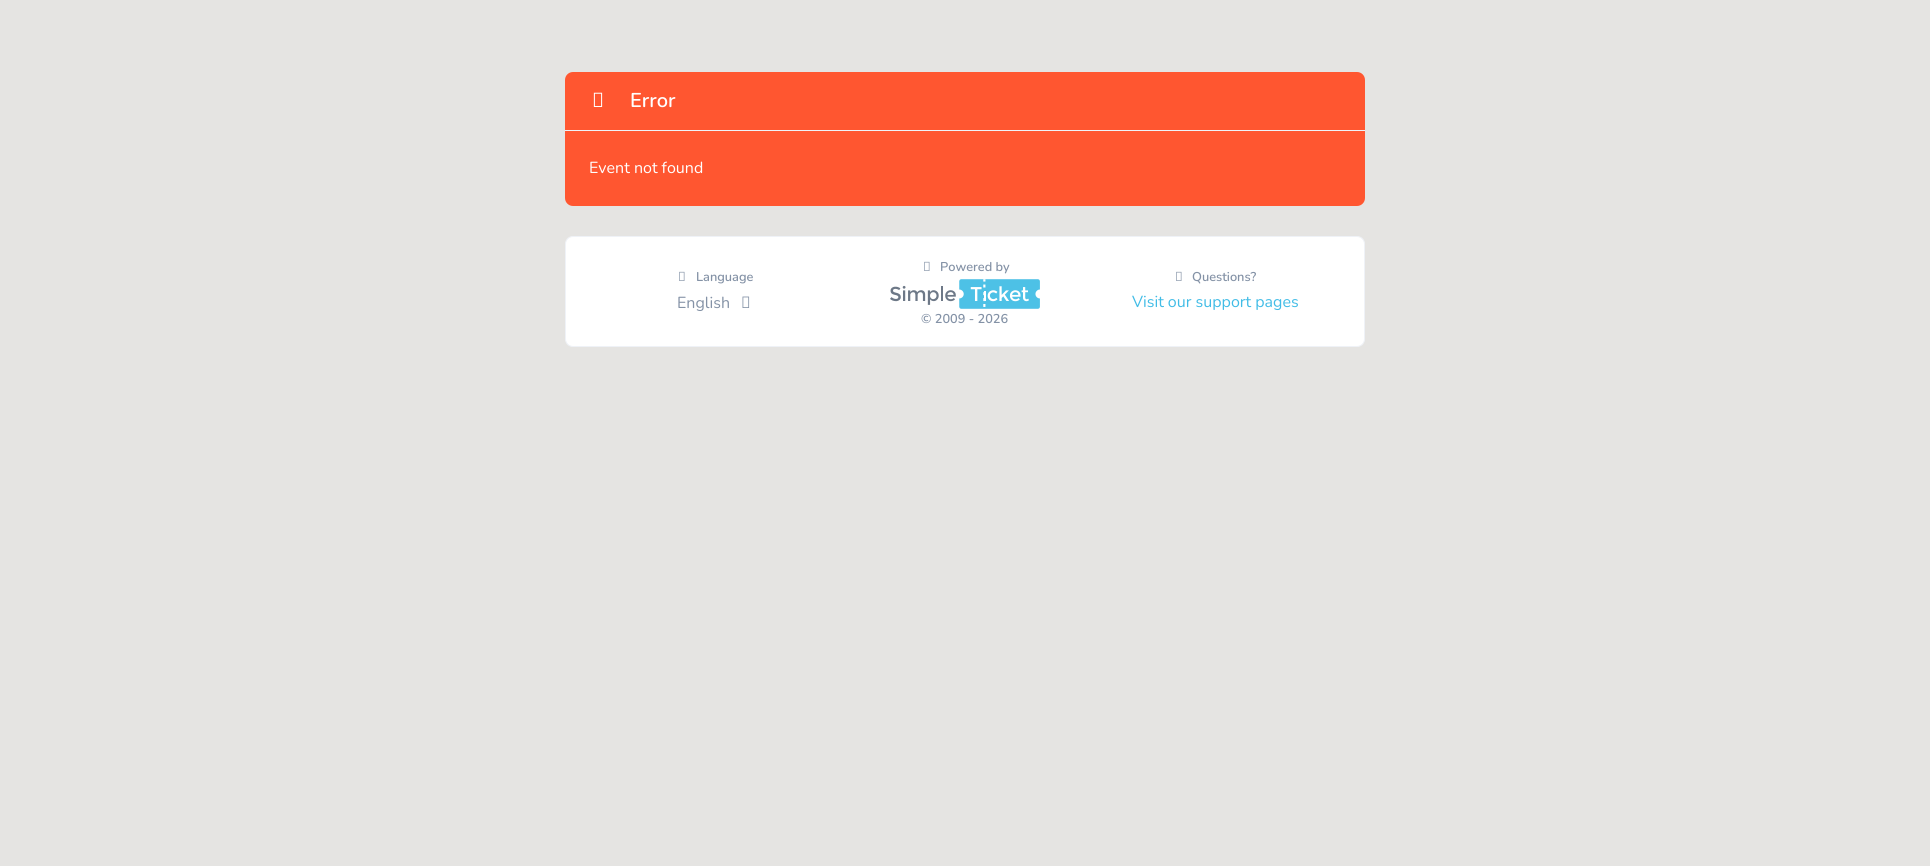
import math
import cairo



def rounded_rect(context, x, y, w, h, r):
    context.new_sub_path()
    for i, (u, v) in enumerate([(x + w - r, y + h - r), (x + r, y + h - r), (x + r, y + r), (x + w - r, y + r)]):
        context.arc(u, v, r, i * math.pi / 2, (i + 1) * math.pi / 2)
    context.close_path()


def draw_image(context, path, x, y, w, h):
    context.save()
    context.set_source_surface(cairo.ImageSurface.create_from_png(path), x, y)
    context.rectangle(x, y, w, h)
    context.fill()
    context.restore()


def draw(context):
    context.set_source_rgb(229 / 255, 228 / 255, 226 / 255)
    context.paint()
    context.set_source_rgb(1, 86 / 255, 48 / 255)
    rounded_rect(context, 565, 72, 800, 134, 8)
    context.fill()
    context.set_source_rgb(239 / 255, 242 / 255, 247 / 255)
    context.rectangle(565, 130, 800, 1)
    context.fill()
    draw_image(context, "images/1.png", 593, 92, 10, 15)
    context.set_source_rgb(1, 1, 1)
    rounded_rect(context, 565.5, 236.5, 799, 110, 7.5)
    context.fill_preserve()
    context.set_source_rgb(239 / 255, 242 / 255, 247 / 255)
    context.set_line_width(1)
    context.stroke()
    draw_image(context, "images/2.png", 679, 271, 6, 10)
    draw_image(context, "images/3.png", 742, 296, 8, 12)
    draw_image(context, "images/2.png", 924, 261, 6, 10)
    draw_image(context, "images/4.png", 890, 279, 150, 30)
    draw_image(context, "images/2.png", 1176, 271, 6, 10)
    context.select_font_face("Nunito SemiBold")
    context.set_font_size(20)
    context.set_source_rgb(1, 1, 1)
    context.move_to(630, 107)
    context.show_text("Error")
    context.select_font_face("Nunito")
    context.set_font_size(16)
    context.move_to(589, 173)
    context.show_text("Event not found")
    context.select_font_face("Nunito SemiBold")
    context.set_font_size(12.75)
    context.set_source_rgb(132 / 255, 146 / 255, 166 / 255)
    context.move_to(696, 281)
    context.show_text("Language")
    context.select_font_face("Nunito")
    context.set_font_size(16)
    context.move_to(677, 308)
    context.show_text("English")
    context.select_font_face("Nunito SemiBold")
    context.set_font_size(12.75)
    context.move_to(940, 271)
    context.show_text("Powered by")
    context.move_to(921, 323)
    context.show_text("© 2009 - 2026")
    context.move_to(1192, 281)
    context.show_text("Questions?")
    context.select_font_face("Nunito")
    context.set_font_size(16)
    context.set_source_rgb(65 / 255, 188 / 255, 230 / 255)
    context.move_to(1132, 307)
    context.show_text("Visit our support pages")


surface = cairo.ImageSurface(cairo.Format.RGB24, 1930, 866)
context = cairo.Context(surface)
options = cairo.FontOptions()
options.set_hint_metrics(cairo.HintMetrics.OFF)
options.set_hint_style(cairo.HintStyle.NONE)
context.set_font_options(options)
context.set_miter_limit(4)
draw(context)
surface.write_to_png("out.png")
